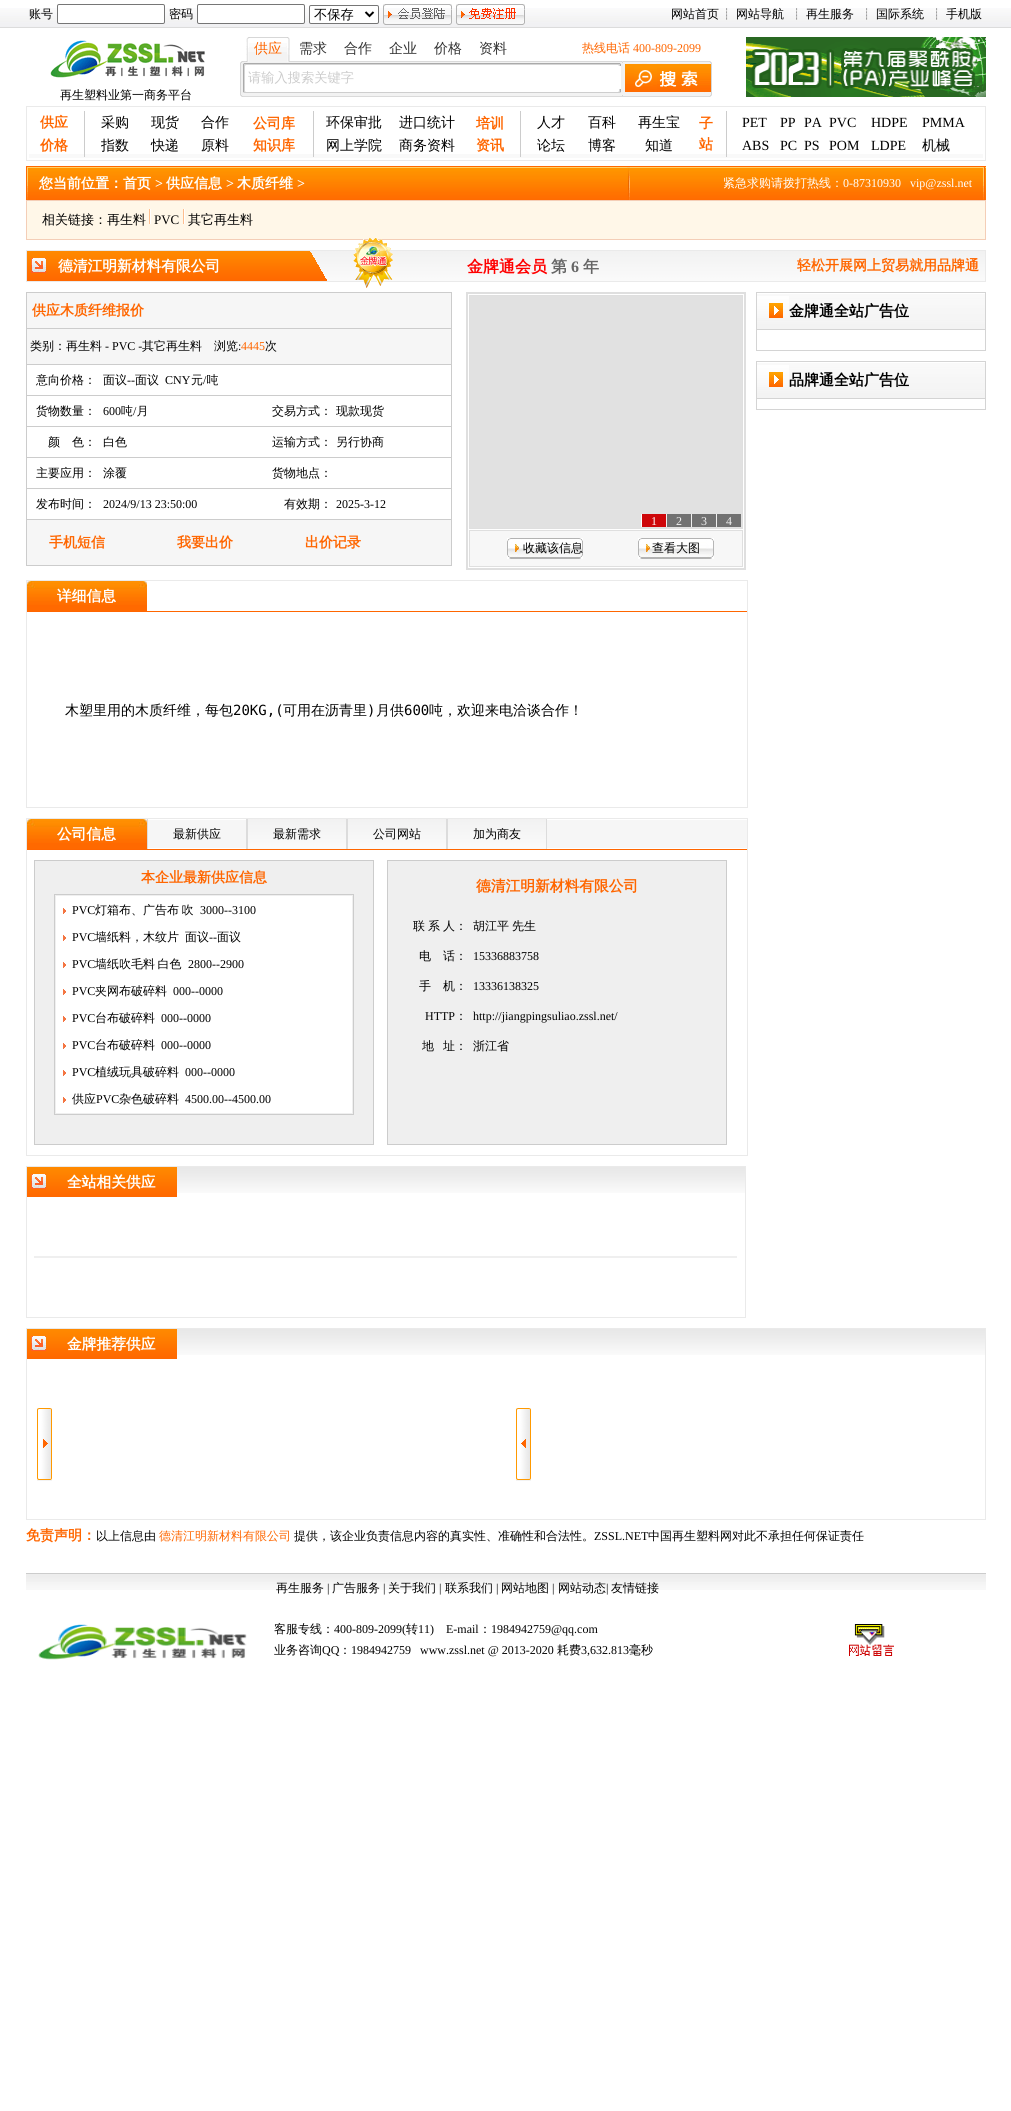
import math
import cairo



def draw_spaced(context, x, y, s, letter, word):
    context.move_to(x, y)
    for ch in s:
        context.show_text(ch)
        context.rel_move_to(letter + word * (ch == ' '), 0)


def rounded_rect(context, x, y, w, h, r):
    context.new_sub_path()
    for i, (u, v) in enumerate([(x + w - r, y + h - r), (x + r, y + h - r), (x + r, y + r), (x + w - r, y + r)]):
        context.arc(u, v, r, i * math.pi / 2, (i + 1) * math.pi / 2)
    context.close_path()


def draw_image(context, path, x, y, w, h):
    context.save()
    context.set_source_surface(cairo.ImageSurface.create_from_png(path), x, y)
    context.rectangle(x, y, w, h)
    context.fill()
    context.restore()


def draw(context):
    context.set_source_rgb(1, 1, 1)
    context.paint()
    draw_image(context, "images/1.png", 0, 8, 1011, 20)
    context.set_source_rgb(1, 1, 1)
    rounded_rect(context, 57.5, 4.5, 107, 19, 1.5)
    context.fill_preserve()
    context.set_source_rgb(118 / 255, 118 / 255, 118 / 255)
    context.set_line_width(1)
    context.stroke()
    context.set_source_rgb(1, 1, 1)
    rounded_rect(context, 197.5, 4.5, 107, 19, 1.5)
    context.fill_preserve()
    context.set_source_rgb(118 / 255, 118 / 255, 118 / 255)
    context.stroke()
    context.set_source_rgb(1, 1, 1)
    rounded_rect(context, 309.5, 5.5, 69, 18, 1.5)
    context.fill_preserve()
    context.set_source_rgb(118 / 255, 118 / 255, 118 / 255)
    context.stroke()
    context.new_path()
    context.move_to(365.5, 12)
    context.line_to(369.5, 16)
    context.line_to(373.5, 12)
    context.set_source_rgb(0, 0, 0)
    context.set_line_width(2)
    context.stroke()
    draw_image(context, "images/2.png", 383, 4, 69, 21)
    draw_image(context, "images/3.png", 456, 4, 69, 21)
    draw_image(context, "images/4.png", 240, 61, 472, 36)
    draw_image(context, "images/5.png", 246, 37, 44, 25)
    context.set_source_rgb(1, 1, 1)
    context.rectangle(619, 66, 2, 23)
    context.fill()
    draw_image(context, "images/6.png", 625, 64, 86, 28)
    draw_image(context, "images/7.png", 746, 37, 240, 60)
    draw_image(context, "images/8.png", 50, 40, 155, 38)
    context.rectangle(26.5, 106.5, 959, 54)
    context.set_source_rgb(234 / 255, 234 / 255, 234 / 255)
    context.set_line_width(1)
    context.stroke()
    context.set_source_rgb(249 / 255, 249 / 255, 249 / 255)
    context.rectangle(29, 154, 954, 4)
    context.fill()
    context.set_source_rgb(204 / 255, 204 / 255, 204 / 255)
    context.rectangle(84, 111, 1, 46)
    context.fill()
    context.rectangle(313, 111, 1, 46)
    context.fill()
    context.rectangle(520, 111, 1, 46)
    context.fill()
    context.rectangle(726, 111, 1, 46)
    context.fill()
    draw_image(context, "images/9.png", 26, 166, 960, 34)
    draw_image(context, "images/10.png", 26, 167, 2, 33)
    draw_image(context, "images/11.png", 627, 167, 3, 33)
    draw_image(context, "images/12.png", 983, 167, 2, 33)
    context.set_source_rgb(1, 247 / 255, 232 / 255)
    context.rectangle(26.5, 200.5, 959, 39)
    context.fill_preserve()
    context.set_source_rgb(244 / 255, 206 / 255, 183 / 255)
    context.stroke()
    draw_image(context, "images/13.png", 149, 209, 2, 15)
    draw_image(context, "images/13.png", 183, 209, 2, 15)
    context.rectangle(26.5, 250.5, 959, 31)
    context.set_source_rgb(234 / 255, 234 / 255, 234 / 255)
    context.stroke()
    draw_image(context, "images/14.png", 310, 251, 675, 30)
    draw_image(context, "images/15.png", 27, 251, 300, 30)
    draw_image(context, "images/16.png", 353, 237, 40, 51)
    context.set_source_rgb(204 / 255, 204 / 255, 204 / 255)
    context.rectangle(26, 292, 426, 274)
    context.fill()
    context.set_source_rgb(246 / 255, 246 / 255, 246 / 255)
    context.rectangle(27, 293, 424, 35)
    context.fill()
    context.rectangle(27, 329, 424, 35)
    context.fill()
    context.set_source_rgb(1, 1, 1)
    context.rectangle(27, 365, 424, 30)
    context.fill()
    context.rectangle(27, 396, 424, 30)
    context.fill()
    context.rectangle(27, 427, 424, 30)
    context.fill()
    context.rectangle(27, 458, 424, 30)
    context.fill()
    context.rectangle(27, 489, 424, 30)
    context.fill()
    context.set_source_rgb(246 / 255, 246 / 255, 246 / 255)
    context.rectangle(27, 520, 424, 45)
    context.fill()
    context.rectangle(467, 293, 278, 276)
    context.set_source_rgb(223 / 255, 223 / 255, 223 / 255)
    context.set_line_width(2)
    context.stroke()
    context.rectangle(469.5, 295.5, 273, 233)
    context.set_line_width(1)
    context.stroke()
    context.set_source_rgb(225 / 255, 225 / 255, 225 / 255)
    context.rectangle(470, 296, 272, 232)
    context.fill()
    context.set_source_rgb(206 / 255, 6 / 255, 9 / 255)
    context.rectangle(642, 514, 24, 13)
    context.fill()
    context.set_source_rgb(1, 1, 1)
    context.rectangle(641, 514, 1, 13)
    context.fill()
    context.set_source_rgb(113 / 255, 113 / 255, 113 / 255)
    context.rectangle(667, 514, 24, 13)
    context.fill()
    context.set_source_rgb(240 / 255, 240 / 255, 240 / 255)
    context.rectangle(666, 514, 1, 13)
    context.fill()
    context.set_source_rgb(113 / 255, 113 / 255, 113 / 255)
    context.rectangle(692, 514, 24, 13)
    context.fill()
    context.set_source_rgb(240 / 255, 240 / 255, 240 / 255)
    context.rectangle(691, 514, 1, 13)
    context.fill()
    context.set_source_rgb(113 / 255, 113 / 255, 113 / 255)
    context.rectangle(717, 514, 24, 13)
    context.fill()
    context.set_source_rgb(240 / 255, 240 / 255, 240 / 255)
    context.rectangle(716, 514, 1, 13)
    context.fill()
    context.set_source_rgb(247 / 255, 247 / 255, 247 / 255)
    context.rectangle(469.5, 530.5, 273, 36)
    context.fill_preserve()
    context.set_source_rgb(223 / 255, 223 / 255, 223 / 255)
    context.stroke()
    draw_image(context, "images/17.png", 507, 538, 76, 21)
    draw_image(context, "images/17.png", 638, 538, 76, 21)
    context.rectangle(26.5, 580.5, 721, 227)
    context.set_source_rgb(234 / 255, 234 / 255, 234 / 255)
    context.stroke()
    draw_image(context, "images/18.png", 27, 581, 120, 30)
    context.set_source_rgb(1, 102 / 255, 0)
    context.rectangle(27, 611, 720, 1)
    context.fill()
    context.rectangle(26.5, 818.5, 721, 337)
    context.set_source_rgb(234 / 255, 234 / 255, 234 / 255)
    context.stroke()
    draw_image(context, "images/18.png", 27, 819, 120, 30)
    context.set_source_rgb(246 / 255, 246 / 255, 246 / 255)
    context.rectangle(148, 820, 599, 28)
    context.fill()
    context.set_source_rgb(220 / 255, 220 / 255, 220 / 255)
    context.rectangle(246, 819, 2, 30)
    context.fill()
    context.rectangle(147, 819, 1, 30)
    context.fill()
    draw_image(context, "images/19.png", 248, 819, 98, 30)
    context.rectangle(346, 819, 2, 30)
    context.fill()
    draw_image(context, "images/19.png", 348, 819, 98, 30)
    context.rectangle(446, 819, 2, 30)
    context.fill()
    draw_image(context, "images/19.png", 448, 819, 98, 30)
    context.rectangle(546, 819, 1, 30)
    context.fill()
    context.set_source_rgb(1, 102 / 255, 0)
    context.rectangle(27, 849, 720, 1)
    context.fill()
    context.set_source_rgb(204 / 255, 204 / 255, 204 / 255)
    context.rectangle(34, 860, 340, 285)
    context.fill()
    context.set_source_rgb(239 / 255, 239 / 255, 239 / 255)
    context.rectangle(35, 861, 338, 283)
    context.fill()
    context.set_source_rgb(1, 1, 1)
    context.rectangle(56, 896, 296, 217)
    context.fill()
    context.rectangle(54.5, 894.5, 299, 220)
    context.set_source_rgb(204 / 255, 204 / 255, 204 / 255)
    context.stroke()
    draw_image(context, "images/20.png", 63, 908, 3, 6)
    draw_image(context, "images/20.png", 63, 935, 3, 6)
    draw_image(context, "images/20.png", 63, 962, 3, 6)
    draw_image(context, "images/20.png", 63, 989, 3, 6)
    draw_image(context, "images/20.png", 63, 1016, 3, 6)
    draw_image(context, "images/20.png", 63, 1043, 3, 6)
    draw_image(context, "images/20.png", 63, 1070, 3, 6)
    draw_image(context, "images/20.png", 63, 1097, 3, 6)
    context.rectangle(387, 860, 340, 285)
    context.fill()
    context.set_source_rgb(239 / 255, 239 / 255, 239 / 255)
    context.rectangle(388, 861, 338, 283)
    context.fill()
    draw_image(context, "images/21.png", 177, 1167, 568, 26)
    context.rectangle(26.5, 1166.5, 719, 151)
    context.set_source_rgb(234 / 255, 234 / 255, 234 / 255)
    context.stroke()
    draw_image(context, "images/22.png", 27, 1167, 150, 30)
    context.set_source_rgb(239 / 255, 239 / 255, 239 / 255)
    context.rectangle(34, 1256, 703, 2)
    context.fill()
    context.rectangle(756.5, 292.5, 229, 58)
    context.set_source_rgb(212 / 255, 212 / 255, 212 / 255)
    context.stroke()
    draw_image(context, "images/23.png", 757, 294, 228, 35)
    context.rectangle(757, 329, 228, 1)
    context.fill()
    draw_image(context, "images/24.png", 757, 296, 32, 22)
    context.rectangle(756.5, 361.5, 229, 48)
    context.stroke()
    draw_image(context, "images/23.png", 757, 363, 228, 35)
    context.rectangle(757, 398, 228, 1)
    context.fill()
    draw_image(context, "images/24.png", 757, 365, 32, 22)
    draw_image(context, "images/25.png", 177, 1329, 808, 26)
    context.rectangle(26.5, 1328.5, 959, 191)
    context.set_source_rgb(234 / 255, 234 / 255, 234 / 255)
    context.stroke()
    draw_image(context, "images/22.png", 27, 1329, 150, 30)
    draw_image(context, "images/26.png", 37, 1408, 15, 73)
    draw_image(context, "images/27.png", 516, 1408, 15, 73)
    draw_image(context, "images/28.png", 26, 1574, 960, 16)
    context.set_source_rgb(204 / 255, 204 / 255, 204 / 255)
    context.rectangle(26, 1573, 960, 1)
    context.fill()
    draw_image(context, "images/29.png", 38, 1624, 209, 36)
    draw_image(context, "images/30.png", 849, 1624, 45, 32)
    context.select_font_face("WenQuanYi Zen Hei Medium")
    context.set_font_size(12)
    context.set_source_rgb(0, 0, 0)
    context.move_to(29, 18)
    context.show_text("账号")
    context.move_to(169, 18)
    context.show_text("密码")
    context.set_font_size(13.25)
    context.move_to(314, 19)
    context.show_text("不保存")
    context.set_font_size(12)
    context.move_to(671, 18)
    context.show_text("网站首页")
    context.move_to(721, 18)
    context.show_text("┊")
    context.move_to(736, 18)
    context.show_text("网站导航")
    context.move_to(791, 18)
    context.show_text("┊")
    context.move_to(806, 18)
    context.show_text("再生服务")
    context.move_to(861, 18)
    context.show_text("┊")
    context.move_to(876, 18)
    context.show_text("国际系统")
    context.move_to(931, 18)
    context.show_text("┊")
    context.move_to(946, 18)
    context.show_text("手机版")
    context.set_font_size(14)
    context.set_source_rgb(1, 102 / 255, 0)
    context.move_to(254, 53)
    context.show_text("供应")
    context.set_source_rgb(51 / 255, 51 / 255, 51 / 255)
    context.move_to(299, 53)
    context.show_text("需求")
    context.move_to(344, 53)
    context.show_text("合作")
    context.move_to(389, 53)
    context.show_text("企业")
    context.move_to(434, 53)
    context.show_text("价格")
    context.move_to(479, 53)
    context.show_text("资料")
    context.set_font_size(12)
    context.set_source_rgb(1, 102 / 255, 0)
    context.move_to(582, 52)
    context.show_text("热线电话")
    context.select_font_face("Liberation Serif")
    context.move_to(633, 52)
    context.show_text("400-809-2099")
    context.select_font_face("WenQuanYi Zen Hei Medium")
    context.set_font_size(13.25)
    context.set_source_rgb(204 / 255, 204 / 255, 204 / 255)
    context.move_to(248, 82)
    context.show_text("请输入搜索关键字")
    context.set_font_size(12)
    context.set_source_rgb(0, 0, 0)
    context.move_to(60, 99)
    context.show_text("再生塑料业第一商务平台")
    context.select_font_face("WenQuanYi Zen Hei", cairo.FontSlant.NORMAL, cairo.FontWeight.BOLD)
    context.set_font_size(14)
    context.set_source_rgb(1, 102 / 255, 0)
    context.move_to(40, 127)
    context.show_text("供应")
    context.select_font_face("WenQuanYi Zen Hei Medium")
    context.set_source_rgb(0, 0, 0)
    context.move_to(101, 127)
    context.show_text("采购")
    context.move_to(151, 127)
    context.show_text("现货")
    context.move_to(201, 127)
    context.show_text("合作")
    context.select_font_face("WenQuanYi Zen Hei", cairo.FontSlant.NORMAL, cairo.FontWeight.BOLD)
    context.set_source_rgb(1, 102 / 255, 0)
    context.move_to(253, 128)
    context.show_text("公司库")
    context.select_font_face("WenQuanYi Zen Hei Medium")
    context.set_source_rgb(0, 0, 0)
    context.move_to(326, 127)
    context.show_text("环保审批")
    context.move_to(399, 127)
    context.show_text("进口统计")
    context.select_font_face("WenQuanYi Zen Hei", cairo.FontSlant.NORMAL, cairo.FontWeight.BOLD)
    context.set_source_rgb(1, 102 / 255, 0)
    context.move_to(476, 128)
    context.show_text("培训")
    context.select_font_face("WenQuanYi Zen Hei Medium")
    context.set_source_rgb(0, 0, 0)
    context.move_to(537, 127)
    context.show_text("人才")
    context.move_to(588, 127)
    context.show_text("百科")
    context.move_to(638, 127)
    context.show_text("再生宝")
    context.select_font_face("WenQuanYi Zen Hei", cairo.FontSlant.NORMAL, cairo.FontWeight.BOLD)
    context.set_source_rgb(1, 102 / 255, 0)
    context.move_to(699, 128)
    context.show_text("子")
    context.move_to(699, 149)
    context.show_text("站")
    context.select_font_face("Liberation Serif")
    context.set_source_rgb(0, 0, 0)
    context.move_to(742, 127)
    context.show_text("PET")
    context.move_to(780, 127)
    context.show_text("PP")
    context.move_to(804, 127)
    context.show_text("PA")
    context.move_to(829, 127)
    context.show_text("PVC")
    context.move_to(871, 127)
    context.show_text("HDPE")
    context.move_to(922, 127)
    context.show_text("PMMA")
    context.select_font_face("WenQuanYi Zen Hei", cairo.FontSlant.NORMAL, cairo.FontWeight.BOLD)
    context.set_source_rgb(1, 102 / 255, 0)
    context.move_to(40, 150)
    context.show_text("价格")
    context.select_font_face("WenQuanYi Zen Hei Medium")
    context.set_source_rgb(0, 0, 0)
    context.move_to(101, 150)
    context.show_text("指数")
    context.move_to(151, 150)
    context.show_text("快递")
    context.move_to(201, 150)
    context.show_text("原料")
    context.select_font_face("WenQuanYi Zen Hei", cairo.FontSlant.NORMAL, cairo.FontWeight.BOLD)
    context.set_source_rgb(1, 102 / 255, 0)
    context.move_to(253, 150)
    context.show_text("知识库")
    context.select_font_face("WenQuanYi Zen Hei Medium")
    context.set_source_rgb(0, 0, 0)
    context.move_to(326, 150)
    context.show_text("网上学院")
    context.move_to(399, 150)
    context.show_text("商务资料")
    context.select_font_face("WenQuanYi Zen Hei", cairo.FontSlant.NORMAL, cairo.FontWeight.BOLD)
    context.set_source_rgb(1, 102 / 255, 0)
    context.move_to(476, 150)
    context.show_text("资讯")
    context.select_font_face("WenQuanYi Zen Hei Medium")
    context.set_source_rgb(0, 0, 0)
    context.move_to(537, 150)
    context.show_text("论坛")
    context.move_to(588, 150)
    context.show_text("博客")
    context.move_to(645, 150)
    context.show_text("知道")
    context.select_font_face("Liberation Serif")
    context.move_to(742, 150)
    context.show_text("ABS")
    context.move_to(780, 150)
    context.show_text("PC")
    context.move_to(804, 150)
    context.show_text("PS")
    context.move_to(829, 150)
    context.show_text("POM")
    context.move_to(871, 150)
    context.show_text("LDPE")
    context.select_font_face("WenQuanYi Zen Hei Medium")
    context.move_to(922, 150)
    context.show_text("机械")
    context.select_font_face("WenQuanYi Zen Hei", cairo.FontSlant.NORMAL, cairo.FontWeight.BOLD)
    context.set_source_rgb(1, 1, 1)
    context.move_to(39, 188)
    context.show_text("您当前位置：首页")
    context.select_font_face("Liberation Serif", cairo.FontSlant.NORMAL, cairo.FontWeight.BOLD)
    context.move_to(155, 188)
    context.show_text(">")
    context.select_font_face("WenQuanYi Zen Hei", cairo.FontSlant.NORMAL, cairo.FontWeight.BOLD)
    context.move_to(166, 188)
    context.show_text("供应信息")
    context.select_font_face("Liberation Serif", cairo.FontSlant.NORMAL, cairo.FontWeight.BOLD)
    context.move_to(226, 188)
    context.show_text(">")
    context.select_font_face("WenQuanYi Zen Hei", cairo.FontSlant.NORMAL, cairo.FontWeight.BOLD)
    context.move_to(237, 188)
    context.show_text("木质纤维")
    context.select_font_face("Liberation Serif", cairo.FontSlant.NORMAL, cairo.FontWeight.BOLD)
    context.move_to(297, 188)
    context.show_text(">")
    context.select_font_face("WenQuanYi Zen Hei Medium")
    context.set_font_size(12)
    context.move_to(723, 187)
    context.show_text("紧急求购请拨打热线：")
    context.select_font_face("Liberation Serif")
    context.move_to(843, 187)
    context.show_text("0-87310930   vip@zssl.net")
    context.select_font_face("WenQuanYi Zen Hei Medium")
    context.set_font_size(13)
    context.set_source_rgb(0, 0, 0)
    context.move_to(42, 224)
    context.show_text("相关链接：再生料")
    context.select_font_face("Liberation Serif")
    context.move_to(154, 224)
    context.show_text("PVC")
    context.select_font_face("WenQuanYi Zen Hei Medium")
    context.move_to(188, 224)
    context.show_text("其它再生料")
    context.select_font_face("WenQuanYi Zen Hei", cairo.FontSlant.NORMAL, cairo.FontWeight.BOLD)
    context.set_font_size(14.75)
    context.set_source_rgb(1, 1, 1)
    context.move_to(58, 271)
    context.show_text("德清江明新材料有限公司")
    context.set_font_size(16)
    context.set_source_rgb(1, 0, 0)
    context.move_to(467, 272)
    context.show_text("金牌通会员")
    context.set_source_rgb(102 / 255, 102 / 255, 102 / 255)
    context.move_to(551, 272)
    context.show_text("第")
    context.select_font_face("Liberation Serif", cairo.FontSlant.NORMAL, cairo.FontWeight.BOLD)
    context.move_to(571, 272)
    context.show_text("6")
    context.select_font_face("WenQuanYi Zen Hei", cairo.FontSlant.NORMAL, cairo.FontWeight.BOLD)
    context.move_to(583, 272)
    context.show_text("年")
    context.set_font_size(14)
    context.set_source_rgb(1, 102 / 255, 0)
    context.move_to(797, 270)
    context.show_text("轻松开展网上贸易就用品牌通")
    context.move_to(32, 315)
    context.show_text("供应木质纤维报价")
    context.select_font_face("WenQuanYi Zen Hei Medium")
    context.set_font_size(12)
    context.set_source_rgb(0, 0, 0)
    context.move_to(30, 350)
    context.show_text("类别：再生料")
    context.select_font_face("Liberation Serif")
    context.move_to(105, 350)
    context.show_text("- PVC -")
    context.select_font_face("WenQuanYi Zen Hei Medium")
    context.move_to(142, 350)
    context.show_text("其它再生料")
    context.move_to(214, 350)
    context.show_text("浏览")
    context.select_font_face("Liberation Serif")
    context.move_to(238, 350)
    context.show_text(":")
    context.set_source_rgb(1, 102 / 255, 0)
    context.move_to(241, 350)
    context.show_text("4445")
    context.select_font_face("WenQuanYi Zen Hei Medium")
    context.set_source_rgb(0, 0, 0)
    context.move_to(265, 350)
    context.show_text("次")
    context.move_to(36, 384)
    context.show_text("意向价格：")
    context.move_to(103, 384)
    context.show_text("面议")
    context.move_to(135, 384)
    context.show_text("面议")
    context.select_font_face("Liberation Serif")
    context.move_to(165, 384)
    context.show_text("CNY")
    context.select_font_face("WenQuanYi Zen Hei Medium")
    context.move_to(191, 384)
    context.show_text("元 吨")
    context.select_font_face("Liberation Serif")
    context.move_to(127, 384)
    context.show_text("--")
    context.move_to(203, 384)
    context.show_text("/")
    context.select_font_face("WenQuanYi Zen Hei Medium")
    context.move_to(36, 415)
    context.show_text("货物数量：")
    context.select_font_face("Liberation Serif")
    context.move_to(103, 415)
    context.show_text("600")
    context.select_font_face("WenQuanYi Zen Hei Medium")
    context.move_to(121, 415)
    context.show_text("吨 月")
    context.select_font_face("Liberation Serif")
    context.move_to(133, 415)
    context.show_text("/")
    context.select_font_face("WenQuanYi Zen Hei Medium")
    context.move_to(272, 415)
    context.show_text("交易方式：")
    context.move_to(336, 415)
    context.show_text("现款现货")
    context.move_to(48, 446)
    context.show_text("颜")
    context.move_to(72, 446)
    context.show_text("色：")
    context.move_to(103, 446)
    context.show_text("白色")
    context.move_to(272, 446)
    context.show_text("运输方式：")
    context.move_to(336, 446)
    context.show_text("另行协商")
    context.move_to(36, 477)
    context.show_text("主要应用：")
    context.move_to(103, 477)
    context.show_text("涂覆")
    context.move_to(272, 477)
    context.show_text("货物地点：")
    context.move_to(36, 508)
    context.show_text("发布时间：")
    context.select_font_face("Liberation Serif")
    context.move_to(103, 508)
    context.show_text("2024/9/13 23:50:00")
    context.select_font_face("WenQuanYi Zen Hei Medium")
    context.move_to(284, 508)
    context.show_text("有效期：")
    context.select_font_face("Liberation Serif")
    context.move_to(336, 508)
    context.show_text("2025-3-12")
    context.select_font_face("WenQuanYi Zen Hei", cairo.FontSlant.NORMAL, cairo.FontWeight.BOLD)
    context.set_font_size(14)
    context.set_source_rgb(1, 102 / 255, 0)
    context.move_to(49, 547)
    context.show_text("手机短信")
    context.move_to(177, 547)
    context.show_text("我要出价")
    context.move_to(305, 547)
    context.show_text("出价记录")
    context.select_font_face("Liberation Serif")
    context.set_font_size(12)
    context.set_source_rgb(1, 1, 1)
    context.move_to(651, 525)
    context.show_text("1")
    context.set_source_rgb(240 / 255, 240 / 255, 240 / 255)
    context.move_to(676, 525)
    context.show_text("2")
    context.move_to(701, 525)
    context.show_text("3")
    context.move_to(726, 525)
    context.show_text("4")
    context.select_font_face("WenQuanYi Zen Hei Medium")
    context.set_source_rgb(0, 0, 0)
    context.move_to(523, 552)
    context.show_text("收藏该信息")
    context.move_to(652, 552)
    context.show_text("查看大图")
    context.select_font_face("WenQuanYi Zen Hei", cairo.FontSlant.NORMAL, cairo.FontWeight.BOLD)
    context.set_font_size(14.75)
    context.set_source_rgb(1, 1, 1)
    context.move_to(57, 601)
    context.show_text("详细信息")
    context.select_font_face("WenQuanYi Zen Hei Medium")
    context.set_font_size(14)
    context.set_source_rgb(0, 0, 0)
    context.move_to(65, 715)
    context.show_text("木塑里用的木质纤维，每包")
    context.select_font_face("DejaVu Sans Mono")
    context.move_to(233, 715)
    context.show_text("20KG,(")
    context.select_font_face("WenQuanYi Zen Hei Medium")
    context.move_to(283, 715)
    context.show_text("可用在沥青里")
    context.select_font_face("DejaVu Sans Mono")
    context.move_to(367, 715)
    context.show_text(")")
    context.select_font_face("WenQuanYi Zen Hei Medium")
    context.move_to(376, 715)
    context.show_text("月供")
    context.select_font_face("DejaVu Sans Mono")
    context.move_to(404, 715)
    context.show_text("600")
    context.select_font_face("WenQuanYi Zen Hei Medium")
    context.move_to(429, 715)
    context.show_text("吨，欢迎来电洽谈合作！")
    context.select_font_face("WenQuanYi Zen Hei", cairo.FontSlant.NORMAL, cairo.FontWeight.BOLD)
    context.set_font_size(14.75)
    context.set_source_rgb(1, 1, 1)
    context.move_to(57, 839)
    context.show_text("公司信息")
    context.select_font_face("WenQuanYi Zen Hei Medium")
    context.set_font_size(12)
    context.set_source_rgb(0, 0, 0)
    context.move_to(173, 838)
    context.show_text("最新供应")
    context.move_to(273, 838)
    context.show_text("最新需求")
    context.move_to(373, 838)
    context.show_text("公司网站")
    context.move_to(473, 838)
    context.show_text("加为商友")
    context.select_font_face("WenQuanYi Zen Hei", cairo.FontSlant.NORMAL, cairo.FontWeight.BOLD)
    context.set_font_size(14)
    context.set_source_rgb(1, 102 / 255, 0)
    context.move_to(141, 882)
    context.show_text("本企业最新供应信息")
    context.select_font_face("Liberation Serif")
    context.set_font_size(12)
    context.set_source_rgb(0, 0, 0)
    context.move_to(72, 914)
    context.show_text("PVC")
    context.select_font_face("WenQuanYi Zen Hei Medium")
    draw_spaced(context, 95, 914, "灯箱布、广告布 吹", 0, -1)
    context.select_font_face("Liberation Serif")
    context.move_to(200, 914)
    context.show_text("3000--3100")
    context.move_to(72, 941)
    context.show_text("PVC")
    context.select_font_face("WenQuanYi Zen Hei Medium")
    context.move_to(95, 941)
    context.show_text("墙纸料，木纹片")
    context.move_to(185, 941)
    context.show_text("面议")
    context.select_font_face("Liberation Serif")
    context.move_to(209, 941)
    context.show_text("--")
    context.select_font_face("WenQuanYi Zen Hei Medium")
    context.move_to(217, 941)
    context.show_text("面议")
    context.select_font_face("Liberation Serif")
    context.move_to(72, 968)
    context.show_text("PVC")
    context.select_font_face("WenQuanYi Zen Hei Medium")
    draw_spaced(context, 95, 968, "墙纸吹毛料 白色", 0, -1)
    context.select_font_face("Liberation Serif")
    context.move_to(188, 968)
    context.show_text("2800--2900")
    context.move_to(72, 995)
    context.show_text("PVC")
    context.select_font_face("WenQuanYi Zen Hei Medium")
    context.move_to(95, 995)
    context.show_text("夹网布破碎料")
    context.select_font_face("Liberation Serif")
    context.move_to(173, 995)
    context.show_text("000--0000")
    context.move_to(72, 1022)
    context.show_text("PVC")
    context.select_font_face("WenQuanYi Zen Hei Medium")
    context.move_to(95, 1022)
    context.show_text("台布破碎料")
    context.select_font_face("Liberation Serif")
    context.move_to(161, 1022)
    context.show_text("000--0000")
    context.move_to(72, 1049)
    context.show_text("PVC")
    context.select_font_face("WenQuanYi Zen Hei Medium")
    context.move_to(95, 1049)
    context.show_text("台布破碎料")
    context.select_font_face("Liberation Serif")
    context.move_to(161, 1049)
    context.show_text("000--0000")
    context.move_to(72, 1076)
    context.show_text("PVC")
    context.select_font_face("WenQuanYi Zen Hei Medium")
    context.move_to(95, 1076)
    context.show_text("植绒玩具破碎料")
    context.select_font_face("Liberation Serif")
    context.move_to(185, 1076)
    context.show_text("000--0000")
    context.select_font_face("WenQuanYi Zen Hei Medium")
    context.move_to(72, 1103)
    context.show_text("供应")
    context.select_font_face("Liberation Serif")
    context.move_to(96, 1103)
    context.show_text("PVC")
    context.select_font_face("WenQuanYi Zen Hei Medium")
    context.move_to(119, 1103)
    context.show_text("杂色破碎料")
    context.select_font_face("Liberation Serif")
    context.move_to(185, 1103)
    context.show_text("4500.00--4500.00")
    context.select_font_face("WenQuanYi Zen Hei", cairo.FontSlant.NORMAL, cairo.FontWeight.BOLD)
    context.set_font_size(14.75)
    context.set_source_rgb(1, 102 / 255, 0)
    context.move_to(476, 891)
    context.show_text("德清江明新材料有限公司")
    context.select_font_face("WenQuanYi Zen Hei Medium")
    context.set_font_size(12)
    context.set_source_rgb(0, 0, 0)
    context.move_to(413, 930)
    context.show_text("联")
    context.move_to(428, 930)
    context.show_text("系")
    context.move_to(443, 930)
    context.show_text("人：")
    context.move_to(473, 930)
    context.show_text("胡江平")
    context.move_to(512, 930)
    context.show_text("先生")
    context.move_to(419, 960)
    context.show_text("电")
    context.move_to(443, 960)
    context.show_text("话：")
    context.select_font_face("Liberation Serif")
    context.move_to(473, 960)
    context.show_text("15336883758")
    context.select_font_face("WenQuanYi Zen Hei Medium")
    context.move_to(419, 990)
    context.show_text("手")
    context.move_to(443, 990)
    context.show_text("机：")
    context.select_font_face("Liberation Serif")
    context.move_to(473, 990)
    context.show_text("13336138325")
    context.move_to(425, 1020)
    context.show_text("HTTP")
    context.select_font_face("WenQuanYi Zen Hei Medium")
    context.move_to(455, 1020)
    context.show_text("：")
    context.select_font_face("Liberation Serif")
    context.move_to(473, 1020)
    context.show_text("http://jiangpingsuliao.zssl.net/")
    context.select_font_face("WenQuanYi Zen Hei Medium")
    context.move_to(422, 1050)
    context.show_text("地")
    context.move_to(443, 1050)
    context.show_text("址：")
    context.move_to(473, 1050)
    context.show_text("浙江省")
    context.select_font_face("WenQuanYi Zen Hei", cairo.FontSlant.NORMAL, cairo.FontWeight.BOLD)
    context.set_font_size(14.75)
    context.set_source_rgb(1, 1, 1)
    context.move_to(67, 1187)
    context.show_text("全站相关供应")
    context.set_font_size(15)
    context.set_source_rgb(0, 0, 0)
    context.move_to(789, 316)
    context.show_text("金牌通全站广告位")
    context.move_to(789, 385)
    context.show_text("品牌通全站广告位")
    context.set_font_size(14.75)
    context.set_source_rgb(1, 1, 1)
    context.move_to(67, 1349)
    context.show_text("金牌推荐供应")
    context.set_font_size(14)
    context.set_source_rgb(1, 102 / 255, 0)
    context.move_to(26, 1540)
    context.show_text("免责声明：")
    context.select_font_face("WenQuanYi Zen Hei Medium")
    context.set_font_size(12)
    context.set_source_rgb(0, 0, 0)
    context.move_to(96, 1540)
    context.show_text("以上信息由")
    context.set_source_rgb(1, 102 / 255, 0)
    context.move_to(159, 1540)
    context.show_text("德清江明新材料有限公司")
    context.set_source_rgb(0, 0, 0)
    context.move_to(294, 1540)
    context.show_text("提供，该企业负责信息内容的真实性、准确性和合法性。")
    context.select_font_face("Liberation Serif")
    context.move_to(594, 1540)
    context.show_text("ZSSL.NET")
    context.select_font_face("WenQuanYi Zen Hei Medium")
    context.move_to(648, 1540)
    context.show_text("中国再生塑料网对此不承担任何保证责任")
    context.move_to(276, 1592)
    context.show_text("再生服务")
    context.select_font_face("Liberation Serif")
    context.move_to(327, 1592)
    context.show_text("|")
    context.select_font_face("WenQuanYi Zen Hei Medium")
    context.move_to(332, 1592)
    context.show_text("广告服务")
    context.select_font_face("Liberation Serif")
    context.move_to(383, 1592)
    context.show_text("|")
    context.select_font_face("WenQuanYi Zen Hei Medium")
    context.move_to(388, 1592)
    context.show_text("关于我们")
    context.select_font_face("Liberation Serif")
    context.move_to(439, 1592)
    context.show_text("|")
    context.select_font_face("WenQuanYi Zen Hei Medium")
    context.move_to(445, 1592)
    context.show_text("联系我们")
    context.select_font_face("Liberation Serif")
    context.move_to(496, 1592)
    context.show_text("|")
    context.select_font_face("WenQuanYi Zen Hei Medium")
    context.move_to(501, 1592)
    context.show_text("网站地图")
    context.select_font_face("Liberation Serif")
    context.move_to(552, 1592)
    context.show_text("|")
    context.select_font_face("WenQuanYi Zen Hei Medium")
    context.move_to(558, 1592)
    context.show_text("网站动态")
    context.select_font_face("Liberation Serif")
    context.move_to(606, 1592)
    context.show_text("|")
    context.select_font_face("WenQuanYi Zen Hei Medium")
    context.move_to(611, 1592)
    context.show_text("友情链接")
    context.move_to(274, 1633)
    context.show_text("客服专线：")
    context.select_font_face("Liberation Serif")
    context.move_to(334, 1633)
    context.show_text("400-809-2099(")
    context.select_font_face("WenQuanYi Zen Hei Medium")
    context.move_to(406, 1633)
    context.show_text("转")
    context.select_font_face("Liberation Serif")
    context.move_to(418, 1633)
    context.show_text("11)")
    context.move_to(446, 1633)
    context.show_text("E-mail")
    context.select_font_face("WenQuanYi Zen Hei Medium")
    context.move_to(479, 1633)
    context.show_text("：")
    context.select_font_face("Liberation Serif")
    context.move_to(491, 1633)
    context.show_text("1984942759@qq.com")
    context.select_font_face("WenQuanYi Zen Hei Medium")
    context.move_to(274, 1654)
    context.show_text("业务咨询")
    context.select_font_face("Liberation Serif")
    context.move_to(322, 1654)
    context.show_text("QQ")
    context.select_font_face("WenQuanYi Zen Hei Medium")
    context.move_to(339, 1654)
    context.show_text("：")
    context.select_font_face("Liberation Serif")
    context.move_to(351, 1654)
    context.show_text("1984942759   www.zssl.net @ 2013-2020")
    context.select_font_face("WenQuanYi Zen Hei Medium")
    context.move_to(557, 1654)
    context.show_text("耗费")
    context.select_font_face("Liberation Serif")
    context.move_to(581, 1654)
    context.show_text("3,632.813")
    context.select_font_face("WenQuanYi Zen Hei Medium")
    context.move_to(629, 1654)
    context.show_text("毫秒")


surface = cairo.ImageSurface(cairo.Format.RGB24, 1011, 2111)
context = cairo.Context(surface)
options = cairo.FontOptions()
options.set_hint_metrics(cairo.HintMetrics.OFF)
options.set_hint_style(cairo.HintStyle.NONE)
context.set_font_options(options)
context.set_miter_limit(4)
draw(context)
surface.write_to_png("out.png")
